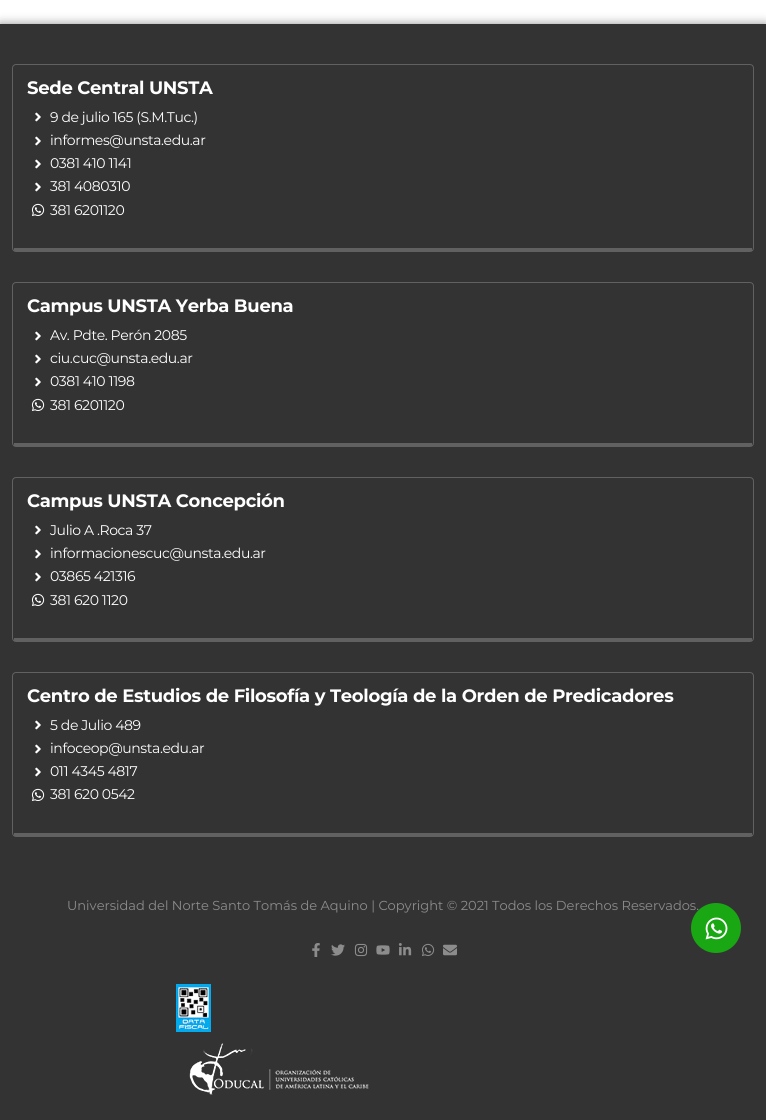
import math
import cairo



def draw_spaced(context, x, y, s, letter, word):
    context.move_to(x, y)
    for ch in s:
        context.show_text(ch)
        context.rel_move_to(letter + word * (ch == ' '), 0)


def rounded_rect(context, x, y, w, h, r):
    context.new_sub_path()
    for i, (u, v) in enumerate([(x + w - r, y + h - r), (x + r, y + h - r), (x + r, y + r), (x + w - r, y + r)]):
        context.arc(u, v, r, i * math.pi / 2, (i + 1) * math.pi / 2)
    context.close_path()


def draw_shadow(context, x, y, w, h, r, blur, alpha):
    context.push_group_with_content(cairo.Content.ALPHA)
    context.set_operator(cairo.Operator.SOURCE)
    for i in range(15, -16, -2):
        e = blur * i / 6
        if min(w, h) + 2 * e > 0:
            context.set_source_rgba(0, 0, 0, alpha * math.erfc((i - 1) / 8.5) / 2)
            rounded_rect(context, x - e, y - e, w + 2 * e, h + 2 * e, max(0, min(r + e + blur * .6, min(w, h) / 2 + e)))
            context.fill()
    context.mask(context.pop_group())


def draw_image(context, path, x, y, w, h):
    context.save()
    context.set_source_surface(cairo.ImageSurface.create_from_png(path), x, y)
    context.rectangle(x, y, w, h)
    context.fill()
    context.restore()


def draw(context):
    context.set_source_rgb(1, 1, 1)
    context.paint()
    context.set_source_rgb(0, 0, 0)
    draw_shadow(context, 0, 24, 766, 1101, 0, 5, 0.44)
    context.set_source_rgb(51 / 255, 51 / 255, 51 / 255)
    context.rectangle(0, 24, 766, 1096)
    context.fill()
    rounded_rect(context, 12.5, 64.5, 741, 187, 3.5)
    context.set_source_rgb(98 / 255, 97 / 255, 97 / 255)
    context.set_line_width(1)
    context.stroke()
    context.rectangle(14, 248, 738, 3)
    context.fill()
    draw_image(context, "images/1.png", 35, 112, 6, 10)
    draw_image(context, "images/1.png", 35, 136, 6, 10)
    draw_image(context, "images/1.png", 35, 159, 6, 10)
    draw_image(context, "images/1.png", 35, 182, 6, 10)
    draw_image(context, "images/2.png", 31, 203, 14, 13)
    rounded_rect(context, 12.5, 282.5, 741, 164, 3.5)
    context.stroke()
    context.rectangle(14, 443, 738, 3)
    context.fill()
    draw_image(context, "images/1.png", 35, 331, 6, 10)
    draw_image(context, "images/1.png", 35, 354, 6, 10)
    draw_image(context, "images/1.png", 35, 377, 6, 10)
    draw_image(context, "images/2.png", 31, 398, 14, 13)
    rounded_rect(context, 12.5, 477.5, 741, 164, 3.5)
    context.stroke()
    context.rectangle(14, 638, 738, 3)
    context.fill()
    draw_image(context, "images/1.png", 35, 525, 6, 10)
    draw_image(context, "images/1.png", 35, 549, 6, 10)
    draw_image(context, "images/1.png", 35, 572, 6, 10)
    draw_image(context, "images/2.png", 31, 593, 14, 13)
    rounded_rect(context, 12.5, 672.5, 741, 164, 3.5)
    context.stroke()
    context.rectangle(14, 833, 738, 3)
    context.fill()
    draw_image(context, "images/1.png", 35, 720, 6, 10)
    draw_image(context, "images/1.png", 35, 744, 6, 10)
    draw_image(context, "images/1.png", 35, 767, 6, 10)
    draw_image(context, "images/2.png", 31, 788, 14, 13)
    draw_image(context, "images/3.png", 312, 943, 8, 14)
    draw_image(context, "images/4.png", 331, 944, 14, 12)
    draw_image(context, "images/5.png", 354, 943, 14, 14)
    draw_image(context, "images/6.png", 376, 945, 14, 10)
    draw_image(context, "images/7.png", 398, 943, 14, 13)
    draw_image(context, "images/8.png", 422, 943, 13, 13)
    draw_image(context, "images/9.png", 443, 944, 14, 12)
    draw_image(context, "images/10.png", 176, 984, 35, 48)
    draw_image(context, "images/11.png", 189, 1043, 180, 52)
    context.select_font_face("Montserrat", cairo.FontSlant.NORMAL, cairo.FontWeight.BOLD)
    context.set_font_size(18)
    context.set_source_rgb(1, 1, 1)
    draw_spaced(context, 27, 94, "Sede Central UNSTA", -0.3, 0)
    context.select_font_face("Montserrat")
    context.set_font_size(14)
    draw_spaced(context, 50, 122, "9 de julio 165 (S.M.Tuc.)", -0.4, 0)
    draw_spaced(context, 50, 145, "informes@unsta.edu.ar", -0.4, 0)
    draw_spaced(context, 50, 168, "0381 410 1141", -0.4, 0)
    draw_spaced(context, 50, 191, "381 4080310", -0.4, 0)
    draw_spaced(context, 50, 215, "381 6201120", -0.4, 0)
    context.select_font_face("Montserrat", cairo.FontSlant.NORMAL, cairo.FontWeight.BOLD)
    context.set_font_size(18)
    draw_spaced(context, 27, 312, "Campus UNSTA Yerba Buena", -0.3, 0)
    context.select_font_face("Montserrat")
    context.set_font_size(14)
    draw_spaced(context, 50, 340, "Av. Pdte. Perón 2085", -0.4, 0)
    draw_spaced(context, 50, 363, "ciu.cuc@unsta.edu.ar", -0.4, 0)
    draw_spaced(context, 50, 386, "0381 410 1198", -0.4, 0)
    draw_spaced(context, 50, 410, "381 6201120", -0.4, 0)
    context.select_font_face("Montserrat", cairo.FontSlant.NORMAL, cairo.FontWeight.BOLD)
    context.set_font_size(18)
    draw_spaced(context, 27, 507, "Campus UNSTA Concepción", -0.3, 0)
    context.select_font_face("Montserrat")
    context.set_font_size(14)
    draw_spaced(context, 50, 535, "Julio A .Roca 37", -0.4, 0)
    draw_spaced(context, 50, 558, "informacionescuc@unsta.edu.ar", -0.4, 0)
    draw_spaced(context, 50, 581, "03865 421316", -0.4, 0)
    draw_spaced(context, 50, 605, "381 620 1120", -0.4, 0)
    context.select_font_face("Montserrat", cairo.FontSlant.NORMAL, cairo.FontWeight.BOLD)
    context.set_font_size(18)
    draw_spaced(context, 27, 702, "Centro de Estudios de Filosofía y Teología de la Orden de Predicadores", -0.3, 0)
    context.select_font_face("Montserrat")
    context.set_font_size(14)
    draw_spaced(context, 50, 730, "5 de Julio 489", -0.4, 0)
    draw_spaced(context, 50, 753, "infoceop@unsta.edu.ar", -0.4, 0)
    draw_spaced(context, 50, 776, "011 4345 4817", -0.4, 0)
    draw_spaced(context, 50, 799, "381 620 0542", -0.4, 0)
    context.set_font_size(13)
    context.set_source_rgb(140 / 255, 140 / 255, 140 / 255)
    context.move_to(67, 910)
    context.show_text("Universidad del Norte Santo Tomás de Aquino | Copyright © 2021 Todos los Derechos Reservados.")
    context.set_source_rgb(25 / 255, 167 / 255, 19 / 255)
    context.new_path()
    context.arc(716, 928, 25, 0, 2 * math.pi)
    context.fill()
    draw_image(context, "images/12.png", 705, 917, 23, 23)


surface = cairo.ImageSurface(cairo.Format.RGB24, 766, 1120)
context = cairo.Context(surface)
options = cairo.FontOptions()
options.set_hint_metrics(cairo.HintMetrics.OFF)
options.set_hint_style(cairo.HintStyle.NONE)
context.set_font_options(options)
context.set_miter_limit(4)
draw(context)
surface.write_to_png("out.png")
